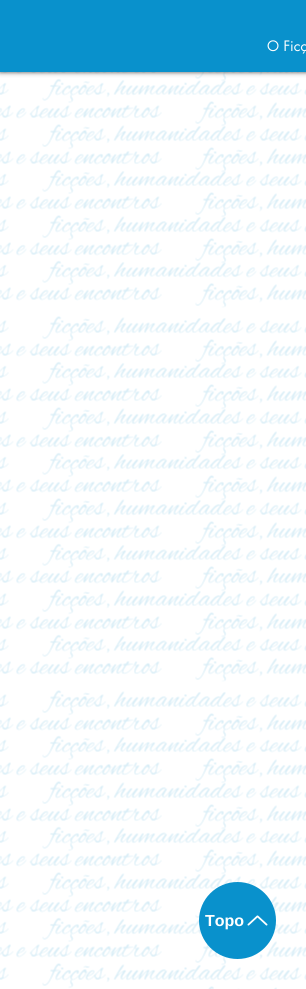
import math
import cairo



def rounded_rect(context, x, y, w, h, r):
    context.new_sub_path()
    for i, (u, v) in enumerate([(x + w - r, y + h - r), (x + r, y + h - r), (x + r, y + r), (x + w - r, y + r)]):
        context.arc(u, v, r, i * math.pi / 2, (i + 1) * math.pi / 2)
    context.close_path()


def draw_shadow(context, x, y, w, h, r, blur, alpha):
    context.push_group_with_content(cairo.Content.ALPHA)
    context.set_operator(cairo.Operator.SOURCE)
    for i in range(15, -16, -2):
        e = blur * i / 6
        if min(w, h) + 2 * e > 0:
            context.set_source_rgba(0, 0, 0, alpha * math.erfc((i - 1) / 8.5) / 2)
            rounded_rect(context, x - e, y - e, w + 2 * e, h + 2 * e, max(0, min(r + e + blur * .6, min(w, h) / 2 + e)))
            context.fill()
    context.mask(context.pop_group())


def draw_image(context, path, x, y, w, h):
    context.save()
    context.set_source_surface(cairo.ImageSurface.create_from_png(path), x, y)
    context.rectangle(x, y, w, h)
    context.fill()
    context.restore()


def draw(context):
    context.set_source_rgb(1, 1, 1)
    context.paint()
    draw_image(context, "images/2.png", 0, 72, 306, 917)
    context.set_source_rgb(0, 0, 0)
    draw_shadow(context, 0, -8, 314, 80, 0, 2.5, 0.7)
    context.set_source_rgb(9 / 255, 145 / 255, 204 / 255)
    context.rectangle(0, 0, 306, 72)
    context.fill()
    context.arc(237.5, 920.5, 38.5, 0, 2 * math.pi)
    context.fill()
    draw_image(context, "images/1.png", 247, 915, 21, 11)
    context.select_font_face("futura")
    context.set_font_size(14)
    context.set_source_rgb(1, 1, 1)
    context.move_to(267, 51)
    context.show_text("O Ficç")
    context.select_font_face("Liberation Sans", cairo.FontSlant.NORMAL, cairo.FontWeight.BOLD)
    context.set_font_size(16)
    context.move_to(205, 926)
    context.show_text("Topo")


surface = cairo.ImageSurface(cairo.Format.RGB24, 306, 989)
context = cairo.Context(surface)
options = cairo.FontOptions()
options.set_hint_metrics(cairo.HintMetrics.OFF)
options.set_hint_style(cairo.HintStyle.NONE)
context.set_font_options(options)
context.set_miter_limit(4)
draw(context)
surface.write_to_png("out.png")
